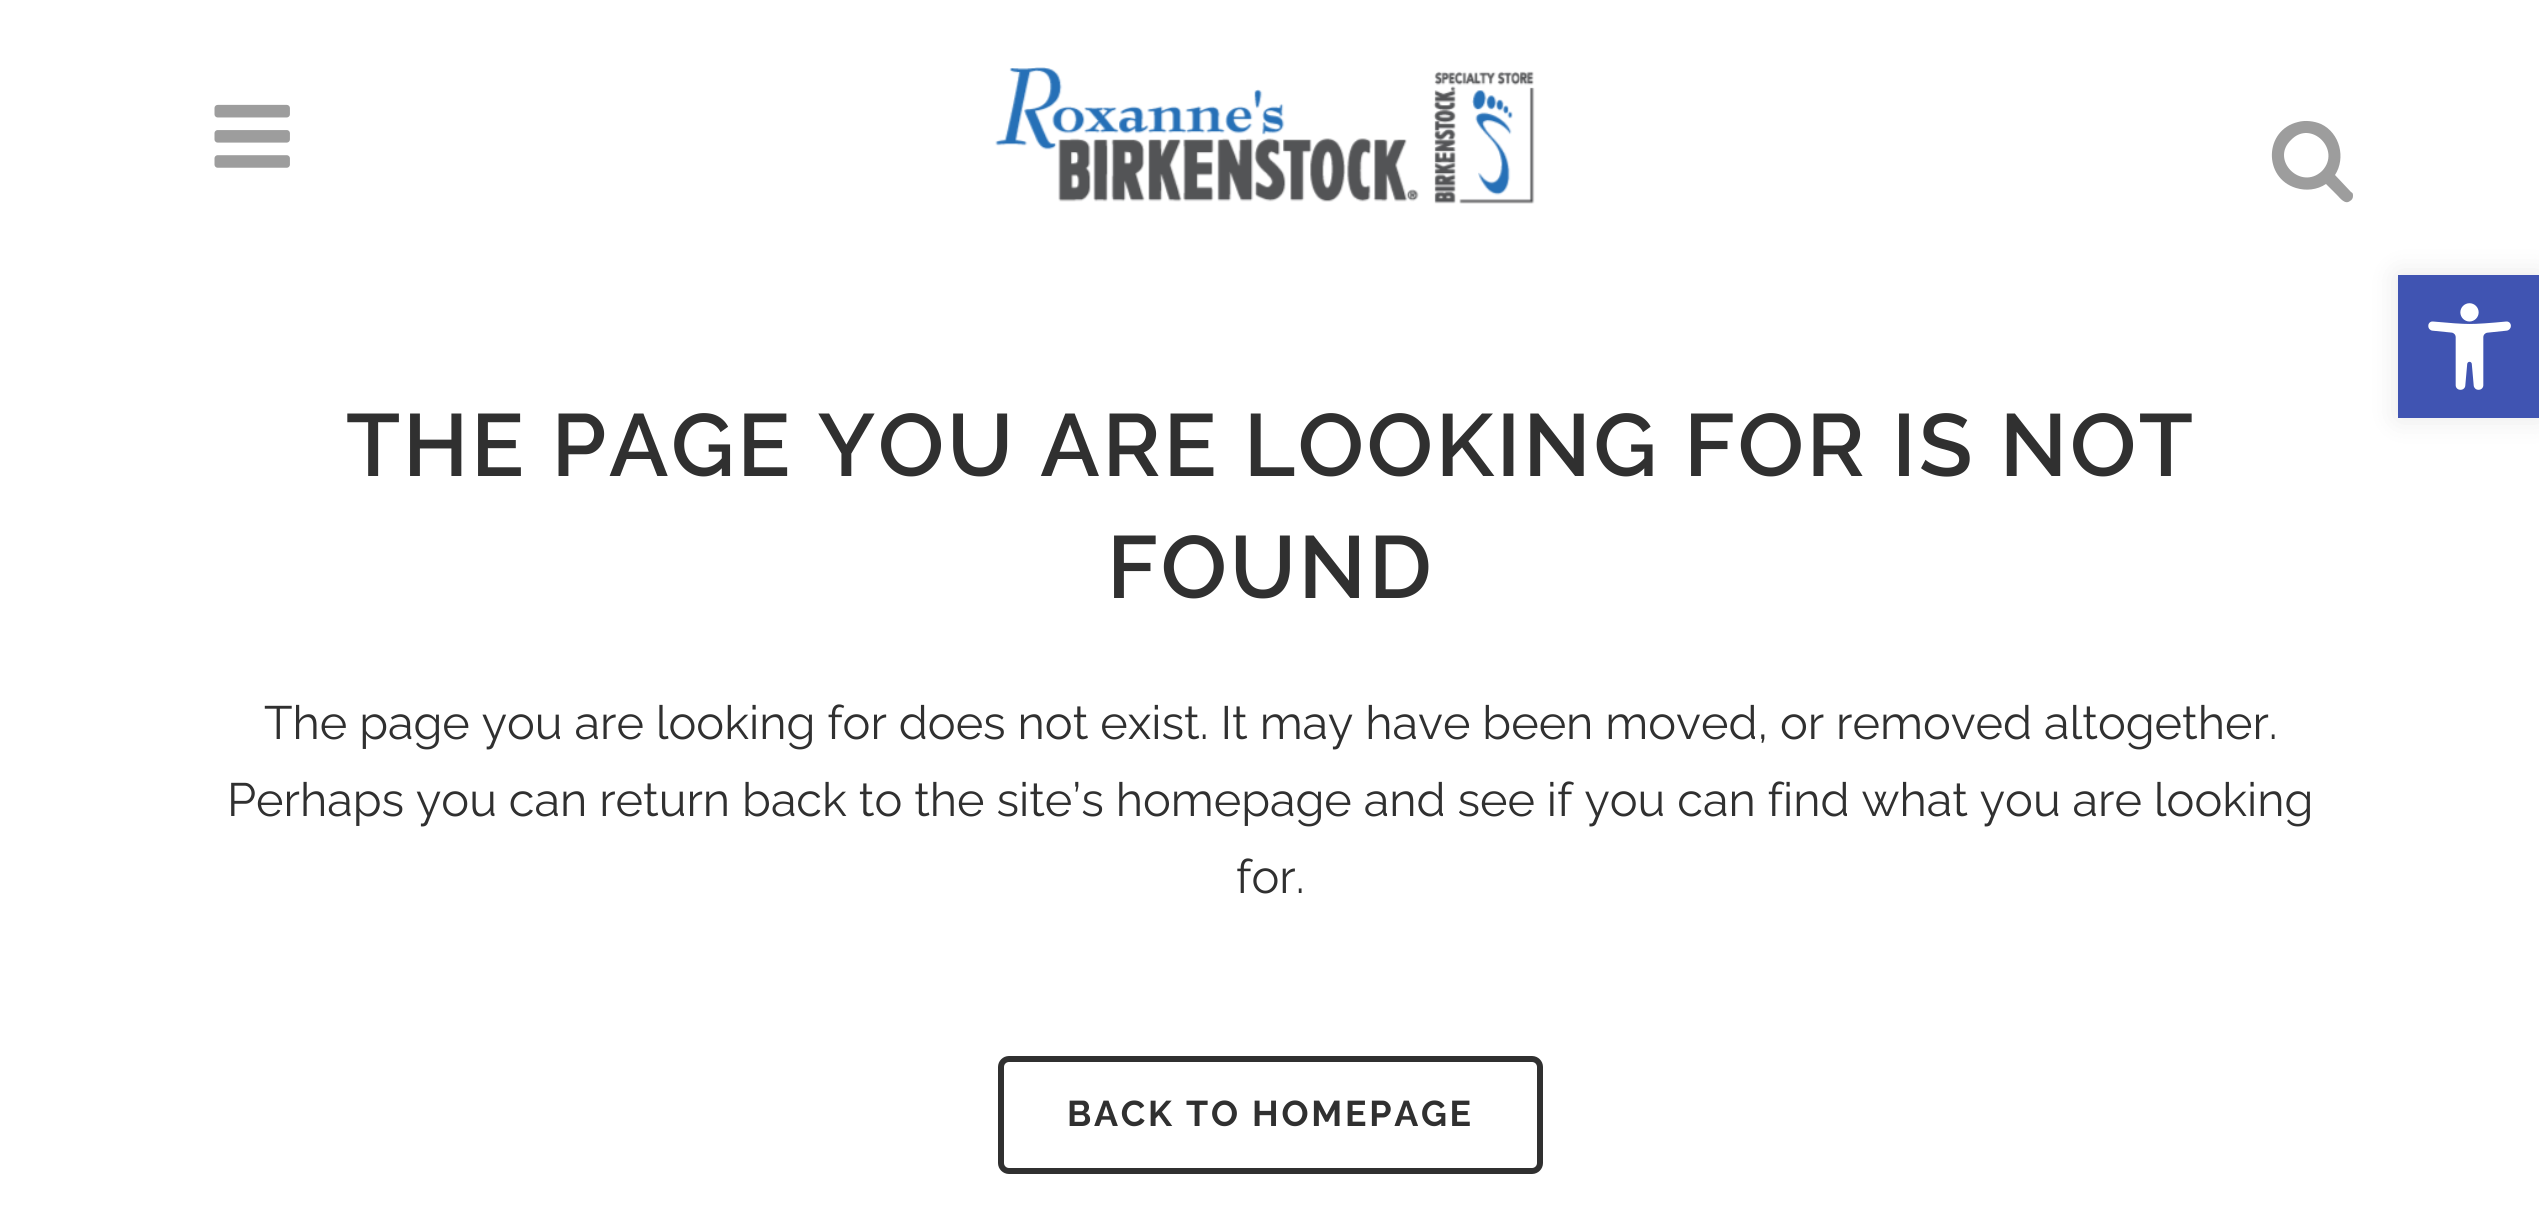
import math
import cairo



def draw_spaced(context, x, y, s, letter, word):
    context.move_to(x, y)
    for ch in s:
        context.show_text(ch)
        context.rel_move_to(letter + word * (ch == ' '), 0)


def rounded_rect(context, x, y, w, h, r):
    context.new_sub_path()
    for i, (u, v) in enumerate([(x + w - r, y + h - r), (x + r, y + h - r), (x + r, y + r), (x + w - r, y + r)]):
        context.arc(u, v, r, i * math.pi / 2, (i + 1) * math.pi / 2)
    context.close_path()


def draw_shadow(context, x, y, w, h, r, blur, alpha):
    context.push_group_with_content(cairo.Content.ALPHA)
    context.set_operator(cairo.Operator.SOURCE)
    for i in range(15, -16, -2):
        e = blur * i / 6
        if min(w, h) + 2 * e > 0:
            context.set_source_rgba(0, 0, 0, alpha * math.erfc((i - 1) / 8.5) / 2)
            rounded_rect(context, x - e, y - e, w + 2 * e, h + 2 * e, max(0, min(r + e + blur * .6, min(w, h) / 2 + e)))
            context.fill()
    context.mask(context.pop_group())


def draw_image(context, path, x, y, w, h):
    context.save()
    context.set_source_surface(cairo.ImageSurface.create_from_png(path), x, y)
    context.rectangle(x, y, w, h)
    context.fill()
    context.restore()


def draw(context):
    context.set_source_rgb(1, 1, 1)
    context.paint()
    context.set_source_rgb(0, 0, 0)
    draw_shadow(context, 2398, 275, 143, 143, 0, 14, 0.1)
    context.set_source_rgb(64 / 255, 84 / 255, 178 / 255)
    context.rectangle(2398, 275, 141, 143)
    context.fill()
    draw_image(context, "images/1.png", 2428, 303, 83, 87)
    draw_image(context, "images/2.png", 214, 104, 76, 64)
    draw_image(context, "images/3.png", 995, 67, 540, 137)
    context.set_source_rgb(157 / 255, 157 / 255, 157 / 255)
    context.new_path()
    context.move_to(2322, 171)
    context.curve_to(2342, 150, 2311, 119, 2291, 140)
    context.curve_to(2270, 160, 2301, 191, 2322, 171)
    context.close_path()
    context.move_to(2353, 196)
    context.curve_to(2353, 198, 2352, 200, 2350, 201)
    context.curve_to(2345, 205, 2340, 198, 2337, 195)
    context.line_to(2326, 184)
    context.curve_to(2317, 190, 2306, 191, 2296, 188)
    context.curve_to(2263, 178, 2264, 130, 2298, 122)
    context.curve_to(2305, 120, 2314, 121, 2321, 124)
    context.curve_to(2340, 133, 2346, 158, 2335, 175)
    context.line_to(2351, 192)
    context.curve_to(2353, 193, 2353, 194, 2353, 196)
    context.close_path()
    context.fill()
    rounded_rect(context, 1001, 1059, 539, 112, 8)
    context.set_source_rgb(48 / 255, 48 / 255, 48 / 255)
    context.set_line_width(6)
    context.stroke()
    context.select_font_face("Raleway SemiBold")
    context.set_font_size(88)
    draw_spaced(context, 346, 476, "THE PAGE YOU ARE LOOKING FOR IS NOT", 2.75, 0)
    draw_spaced(context, 1107, 598, "FOUND", 2.75, 0)
    context.select_font_face("Raleway")
    context.set_font_size(46.75)
    context.move_to(264, 739)
    context.show_text("The page you are looking for does not exist. It may have been moved, or removed altogether.")
    context.move_to(227, 816)
    context.show_text("Perhaps you can return back to the site’s homepage and see if you can find what you are looking")
    context.move_to(1236, 893)
    context.show_text("for.")
    context.select_font_face("Raleway", cairo.FontSlant.NORMAL, cairo.FontWeight.BOLD)
    context.set_font_size(35.75)
    draw_spaced(context, 1067, 1126, "BACK TO HOMEPAGE", 2.75, 0)


surface = cairo.ImageSurface(cairo.Format.RGB24, 2539, 1211)
context = cairo.Context(surface)
options = cairo.FontOptions()
options.set_hint_metrics(cairo.HintMetrics.OFF)
options.set_hint_style(cairo.HintStyle.NONE)
context.set_font_options(options)
context.set_miter_limit(4)
draw(context)
surface.write_to_png("out.png")
